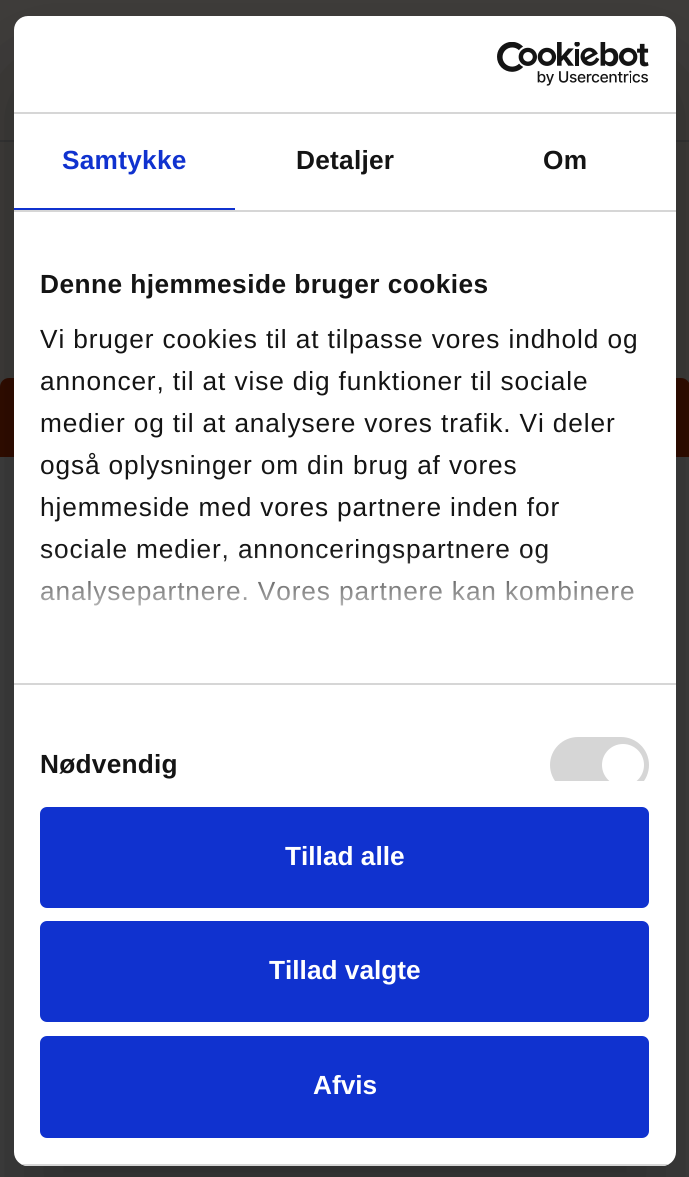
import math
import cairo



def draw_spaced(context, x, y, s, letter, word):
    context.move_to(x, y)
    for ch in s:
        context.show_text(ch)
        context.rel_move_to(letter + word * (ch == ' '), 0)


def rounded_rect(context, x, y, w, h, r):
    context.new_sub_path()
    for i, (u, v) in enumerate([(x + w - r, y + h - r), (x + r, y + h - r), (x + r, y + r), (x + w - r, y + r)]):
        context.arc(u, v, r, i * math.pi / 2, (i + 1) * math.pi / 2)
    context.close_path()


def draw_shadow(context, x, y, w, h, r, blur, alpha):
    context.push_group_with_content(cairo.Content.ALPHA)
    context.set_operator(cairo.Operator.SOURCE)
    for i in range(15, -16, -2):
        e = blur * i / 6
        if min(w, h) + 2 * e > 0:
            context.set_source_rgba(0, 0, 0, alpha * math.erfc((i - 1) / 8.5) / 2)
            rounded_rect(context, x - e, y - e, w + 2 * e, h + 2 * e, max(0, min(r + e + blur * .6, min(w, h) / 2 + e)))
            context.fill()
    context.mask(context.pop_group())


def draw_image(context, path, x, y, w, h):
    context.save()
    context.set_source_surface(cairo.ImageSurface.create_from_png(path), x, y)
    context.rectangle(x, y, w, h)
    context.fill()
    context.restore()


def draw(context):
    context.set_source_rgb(64 / 255, 62 / 255, 60 / 255)
    context.paint()
    context.set_source_rgb(54 / 255, 54 / 255, 54 / 255)
    context.rectangle(0, 140, 689, 2)
    context.fill()
    context.set_source_rgb(51 / 255, 13 / 255, 0)
    context.new_path()
    context.move_to(9, 378)
    context.line_to(681, 378)
    context.curve_to(686, 378, 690, 382, 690, 387)
    context.line_to(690, 457)
    context.line_to(0, 457)
    context.line_to(0, 387)
    context.curve_to(0, 382, 4, 378, 9, 378)
    context.close_path()
    context.fill()
    context.set_source_rgb(64 / 255, 64 / 255, 64 / 255)
    context.rectangle(0, 457, 689, 720)
    context.fill()
    context.set_source_rgb(0, 0, 0)
    draw_shadow(context, 14, 72, 662, 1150, 14, 59.5, 0.3)
    context.set_source_rgb(1, 1, 1)
    rounded_rect(context, 14, 16, 662, 1150, 14)
    context.fill()
    context.set_source_rgb(214 / 255, 214 / 255, 214 / 255)
    context.rectangle(14, 112, 662, 2)
    context.fill()
    draw_image(context, "images/1.png", 497, 42, 152, 44)
    context.rectangle(14, 210, 662, 2)
    context.fill()
    context.set_source_rgb(16 / 255, 50 / 255, 207 / 255)
    context.rectangle(14, 208, 221, 2)
    context.fill()
    context.set_source_rgb(214 / 255, 214 / 255, 214 / 255)
    context.rectangle(14, 683, 662, 2)
    context.fill()
    context.save()
    context.rectangle(14, 212, 662, 569)
    context.clip()
    rounded_rect(context, 550, 737, 99, 56, 28)
    context.fill()
    context.set_source_rgb(1, 1, 1)
    context.arc(623, 765, 21, 0, 2 * math.pi)
    context.fill()
    context.restore()
    context.save()
    rounded_rect(context, 14, 16, 662, 1150, 14)
    context.clip()
    context.rectangle(14, 1164, 662, 2)
    context.fill()
    context.restore()
    context.set_source_rgb(16 / 255, 50 / 255, 207 / 255)
    rounded_rect(context, 42, 809, 605, 97, 5)
    context.fill_preserve()
    context.set_line_width(4)
    context.stroke()
    rounded_rect(context, 42, 923, 605, 97, 5)
    context.fill_preserve()
    context.stroke()
    rounded_rect(context, 42, 1038, 605, 98, 5)
    context.fill_preserve()
    context.stroke()
    context.select_font_face("Liberation Sans", cairo.FontSlant.NORMAL, cairo.FontWeight.BOLD)
    context.set_font_size(26.25)
    draw_spaced(context, 62, 169, "Samtykke", 0.25, 0)
    context.set_source_rgb(20 / 255, 20 / 255, 20 / 255)
    draw_spaced(context, 296, 169, "Detaljer", 0.25, 0)
    draw_spaced(context, 543, 169, "Om", 0.25, 0)
    draw_spaced(context, 40, 293, "Denne hjemmeside bruger cookies", 0.45, 0)
    context.select_font_face("Liberation Sans")
    draw_spaced(context, 40, 348, "Vi bruger cookies til at tilpasse vores indhold og", 0.88, 0)
    draw_spaced(context, 40, 390, "annoncer, til at vise dig funktioner til sociale", 0.88, 0)
    draw_spaced(context, 40, 432, "medier og til at analysere vores trafik. Vi deler", 0.88, 0)
    draw_spaced(context, 40, 474, "også oplysninger om din brug af vores", 0.88, 0)
    draw_spaced(context, 40, 516, "hjemmeside med vores partnere inden for", 0.88, 0)
    draw_spaced(context, 40, 558, "sociale medier, annonceringspartnere og", 0.88, 0)
    draw_spaced(context, 40, 600, "analysepartnere. Vores partnere kan kombinere", 0.88, 0)
    gradient = cairo.LinearGradient(333, 682, 333, 550)
    gradient.add_color_stop_rgba(0, 1, 1, 1, 1)
    gradient.add_color_stop_rgba(0.5, 1, 1, 1, 0.8)
    gradient.add_color_stop_rgba(1, 1, 1, 1, 0)
    context.set_source(gradient)
    context.rectangle(41, 552, 593, 54)
    context.fill()
    context.select_font_face("Liberation Sans", cairo.FontSlant.NORMAL, cairo.FontWeight.BOLD)
    context.set_source_rgb(20 / 255, 20 / 255, 20 / 255)
    draw_spaced(context, 40, 773, "Nødvendig", 0.25, 0)
    context.set_source_rgb(1, 1, 1)
    context.move_to(285, 865)
    context.show_text("Tillad alle")
    context.move_to(269, 979)
    context.show_text("Tillad valgte")
    context.move_to(313, 1094)
    context.show_text("Afvis")


surface = cairo.ImageSurface(cairo.Format.RGB24, 689, 1177)
context = cairo.Context(surface)
options = cairo.FontOptions()
options.set_hint_metrics(cairo.HintMetrics.OFF)
options.set_hint_style(cairo.HintStyle.NONE)
context.set_font_options(options)
context.set_miter_limit(4)
draw(context)
surface.write_to_png("out.png")
